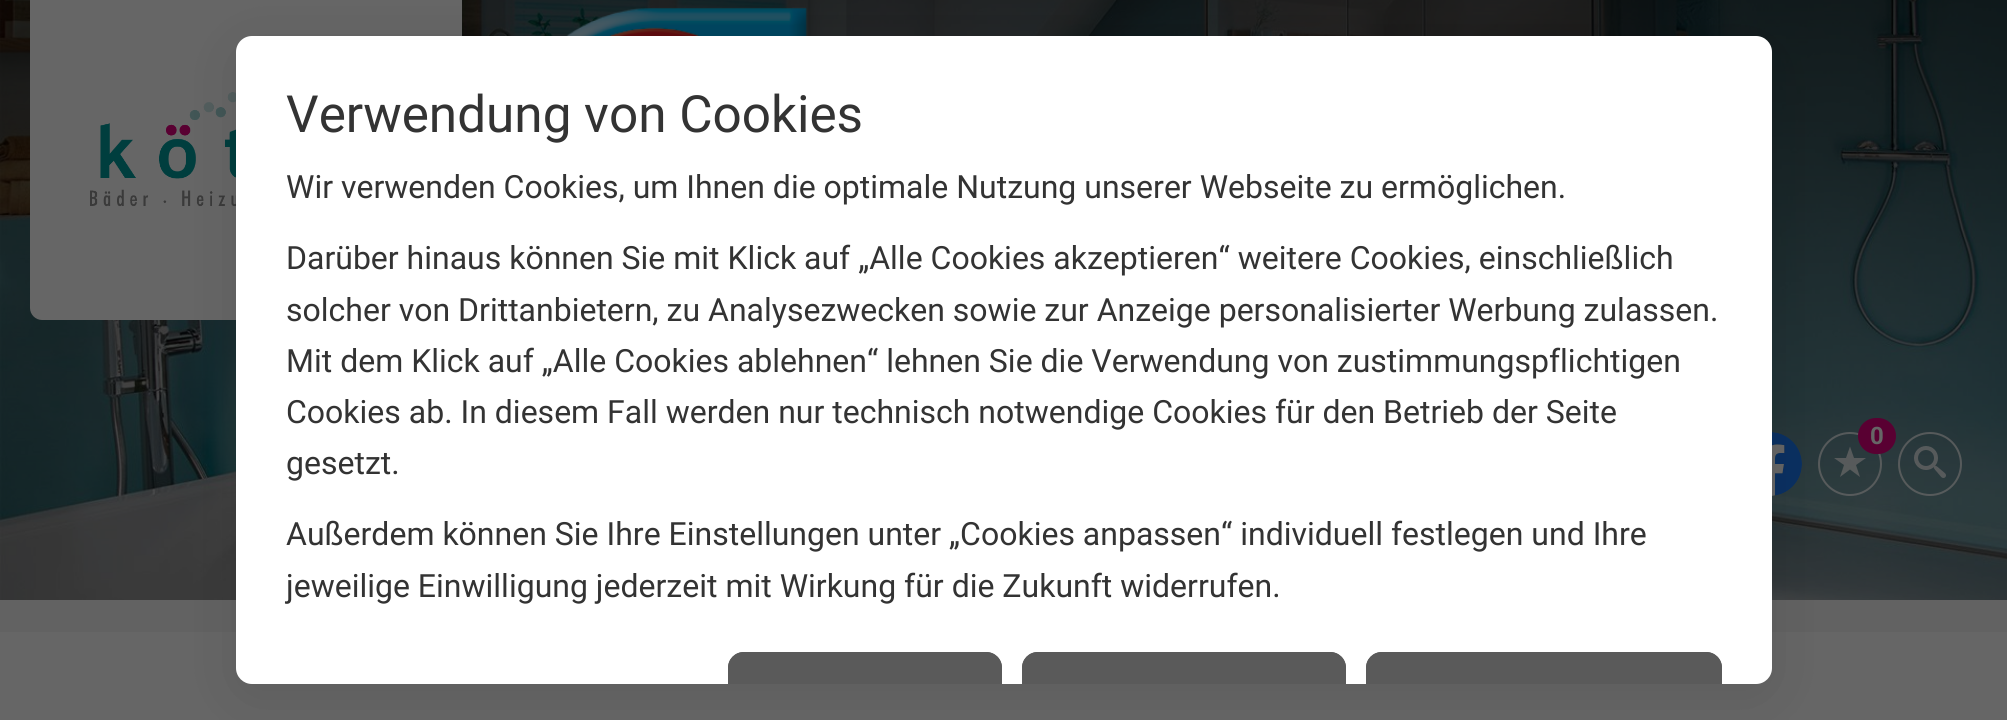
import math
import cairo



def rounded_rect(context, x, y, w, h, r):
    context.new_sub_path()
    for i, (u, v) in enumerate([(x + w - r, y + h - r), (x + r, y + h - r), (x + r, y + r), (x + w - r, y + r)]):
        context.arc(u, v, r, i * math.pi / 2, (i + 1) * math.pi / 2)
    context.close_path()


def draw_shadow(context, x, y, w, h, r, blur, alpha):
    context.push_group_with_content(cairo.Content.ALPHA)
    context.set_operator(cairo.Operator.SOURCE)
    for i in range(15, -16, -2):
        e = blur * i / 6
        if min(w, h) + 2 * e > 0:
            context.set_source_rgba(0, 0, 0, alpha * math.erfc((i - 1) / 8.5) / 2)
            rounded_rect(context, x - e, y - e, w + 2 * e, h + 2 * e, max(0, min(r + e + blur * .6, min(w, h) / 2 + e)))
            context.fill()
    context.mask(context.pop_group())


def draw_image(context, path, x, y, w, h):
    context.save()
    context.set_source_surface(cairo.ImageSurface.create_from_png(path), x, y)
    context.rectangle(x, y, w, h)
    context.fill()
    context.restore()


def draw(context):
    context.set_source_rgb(98 / 255, 98 / 255, 98 / 255)
    context.paint()
    draw_image(context, "images/1.png", 0, 0, 2007, 600)
    context.set_source_rgb(102 / 255, 102 / 255, 102 / 255)
    context.rectangle(0, 632, 2007, 88)
    context.fill()
    context.new_path()
    context.move_to(30, 0)
    context.line_to(462, 0)
    context.line_to(462, 308)
    context.curve_to(462, 314.5, 456.5, 320, 450, 320)
    context.line_to(42, 320)
    context.curve_to(35.5, 320, 30, 314.5, 30, 308)
    context.close_path()
    context.fill()
    draw_image(context, "images/2.png", 90, 92, 146, 115)
    draw_image(context, "images/3.png", 566, 7, 242, 29)
    draw_image(context, "images/4.png", 1772, 432, 30, 64)
    context.arc(1850, 464, 31, 0, 2 * math.pi)
    context.set_source_rgba(102 / 255, 102 / 255, 102 / 255, 0.75)
    context.stroke()
    context.new_path()
    context.move_to(1866, 458)
    context.line_to(1854, 458)
    context.line_to(1850, 446.5)
    context.line_to(1846, 458)
    context.line_to(1834, 458)
    context.line_to(1844, 465)
    context.line_to(1840, 477)
    context.line_to(1850, 469.5)
    context.line_to(1860, 477)
    context.line_to(1856, 465)
    context.close_path()
    context.fill()
    context.set_source_rgb(0, 0, 0)
    draw_shadow(context, 236, 48, 1536, 648, 16, 28, 0.1)
    context.set_source_rgb(1, 1, 1)
    rounded_rect(context, 236, 36, 1536, 648, 16)
    context.fill()
    context.set_source_rgb(90 / 255, 90 / 255, 90 / 255)
    context.new_path()
    context.move_to(744, 652)
    context.line_to(986, 652)
    context.curve_to(995, 652, 1002, 659, 1002, 668)
    context.line_to(1002, 684)
    context.line_to(728, 684)
    context.line_to(728, 668)
    context.curve_to(728, 659, 735, 652, 744, 652)
    context.close_path()
    context.fill()
    context.new_path()
    context.move_to(744, 652)
    context.curve_to(735, 652, 728, 659, 728, 668)
    context.line_to(728, 684)
    context.line_to(730, 684)
    context.line_to(730, 668)
    context.curve_to(730, 660, 736, 654, 744, 654)
    context.line_to(986, 654)
    context.curve_to(994, 654, 1000, 660, 1000, 668)
    context.line_to(1000, 684)
    context.line_to(1002, 684)
    context.line_to(1002, 668)
    context.curve_to(1002, 659, 995, 652, 986, 652)
    context.close_path()
    context.fill()
    context.new_path()
    context.move_to(1038, 652)
    context.line_to(1330, 652)
    context.curve_to(1339, 652, 1346, 659, 1346, 668)
    context.line_to(1346, 684)
    context.line_to(1022, 684)
    context.line_to(1022, 668)
    context.curve_to(1022, 659, 1029, 652, 1038, 652)
    context.close_path()
    context.fill()
    context.new_path()
    context.move_to(1038, 652)
    context.curve_to(1029, 652, 1022, 659, 1022, 668)
    context.line_to(1022, 684)
    context.line_to(1024, 684)
    context.line_to(1024, 668)
    context.curve_to(1024, 660, 1030, 654, 1038, 654)
    context.line_to(1330, 654)
    context.curve_to(1338, 654, 1344, 660, 1344, 668)
    context.line_to(1344, 684)
    context.line_to(1346, 684)
    context.line_to(1346, 668)
    context.curve_to(1346, 659, 1339, 652, 1330, 652)
    context.close_path()
    context.fill()
    context.new_path()
    context.move_to(1382, 652)
    context.line_to(1706, 652)
    context.curve_to(1715, 652, 1722, 659, 1722, 668)
    context.line_to(1722, 684)
    context.line_to(1366, 684)
    context.line_to(1366, 668)
    context.curve_to(1366, 659, 1373, 652, 1382, 652)
    context.close_path()
    context.fill()
    context.new_path()
    context.move_to(1382, 652)
    context.curve_to(1373, 652, 1366, 659, 1366, 668)
    context.line_to(1366, 684)
    context.line_to(1368, 684)
    context.line_to(1368, 668)
    context.curve_to(1368, 660, 1374, 654, 1382, 654)
    context.line_to(1706, 654)
    context.curve_to(1714, 654, 1720, 660, 1720, 668)
    context.line_to(1720, 684)
    context.line_to(1722, 684)
    context.line_to(1722, 668)
    context.curve_to(1722, 659, 1715, 652, 1706, 652)
    context.close_path()
    context.fill()
    context.set_source_rgb(89 / 255, 0, 50 / 255)
    rounded_rect(context, 1858, 418, 38, 36, 18)
    context.fill()
    context.arc(1930, 464, 31, 0, 2 * math.pi)
    context.set_source_rgba(102 / 255, 102 / 255, 102 / 255, 0.75)
    context.stroke()
    draw_image(context, "images/5.png", 1914, 446, 32, 32)
    context.select_font_face("Roboto")
    context.set_font_size(51.25)
    context.set_source_rgb(51 / 255, 51 / 255, 51 / 255)
    context.move_to(286, 132)
    context.show_text("Verwendung von Cookies")
    context.set_font_size(32)
    context.move_to(286, 198)
    context.show_text("Wir verwenden Cookies, um Ihnen die optimale Nutzung unserer Webseite zu ermöglichen.")
    context.move_to(286, 269)
    context.show_text("Darüber hinaus können Sie mit Klick auf „Alle Cookies akzeptieren“ weitere Cookies, einschließlich")
    context.move_to(286, 321)
    context.show_text("solcher von Drittanbietern, zu Analysezwecken sowie zur Anzeige personalisierter Werbung zulassen.")
    context.move_to(286, 372)
    context.show_text("Mit dem Klick auf „Alle Cookies ablehnen“ lehnen Sie die Verwendung von zustimmungspflichtigen")
    context.move_to(286, 423)
    context.show_text("Cookies ab. In diesem Fall werden nur technisch notwendige Cookies für den Betrieb der Seite")
    context.move_to(286, 474)
    context.show_text("gesetzt.")
    context.move_to(286, 545)
    context.show_text("Außerdem können Sie Ihre Einstellungen unter „Cookies anpassen“ individuell festlegen und Ihre")
    context.move_to(286, 597)
    context.show_text("jeweilige Einwilligung jederzeit mit Wirkung für die Zukunft widerrufen.")
    context.select_font_face("Roboto", cairo.FontSlant.NORMAL, cairo.FontWeight.BOLD)
    context.set_font_size(24)
    context.set_source_rgb(102 / 255, 102 / 255, 102 / 255)
    context.move_to(1870, 444)
    context.show_text("0")


surface = cairo.ImageSurface(cairo.Format.RGB24, 2007, 720)
context = cairo.Context(surface)
options = cairo.FontOptions()
options.set_hint_metrics(cairo.HintMetrics.OFF)
options.set_hint_style(cairo.HintStyle.NONE)
context.set_font_options(options)
context.set_miter_limit(4)
draw(context)
surface.write_to_png("out.png")
